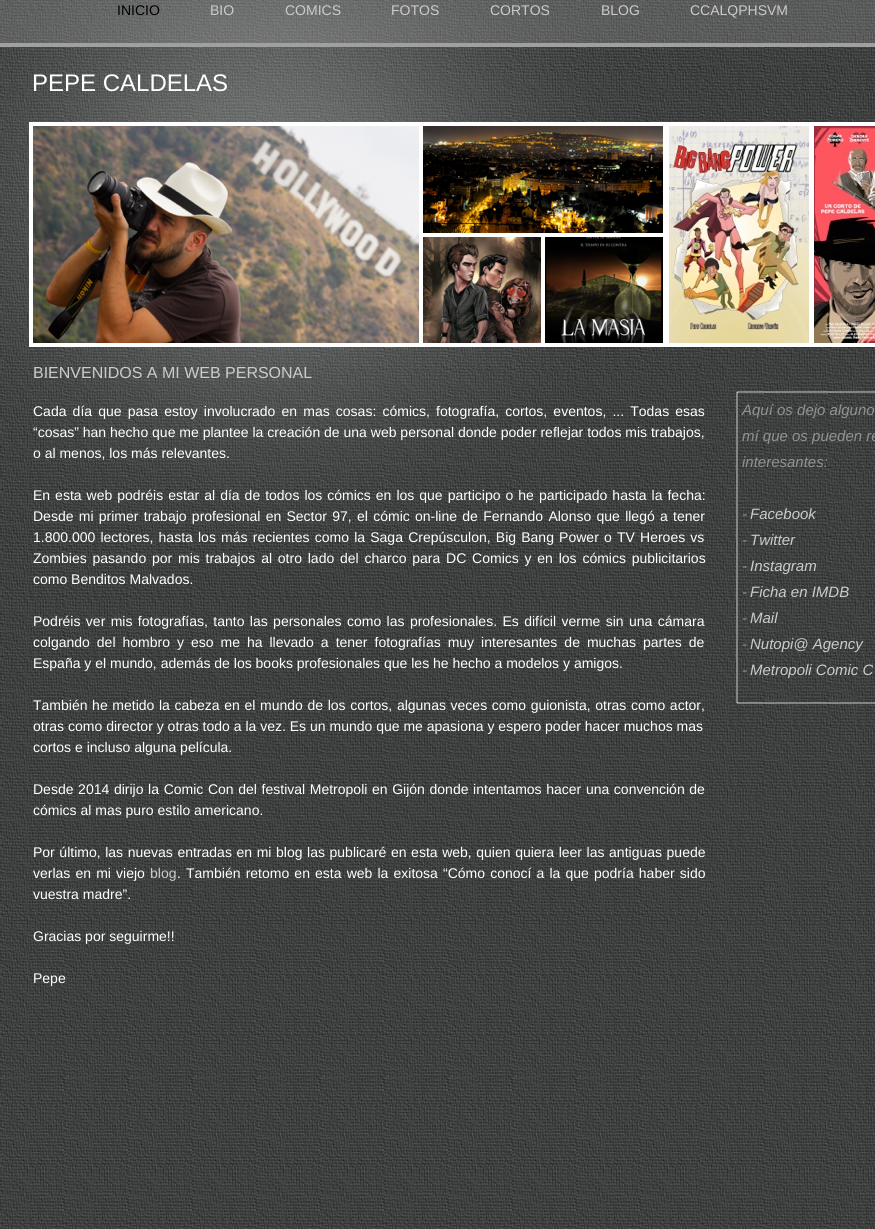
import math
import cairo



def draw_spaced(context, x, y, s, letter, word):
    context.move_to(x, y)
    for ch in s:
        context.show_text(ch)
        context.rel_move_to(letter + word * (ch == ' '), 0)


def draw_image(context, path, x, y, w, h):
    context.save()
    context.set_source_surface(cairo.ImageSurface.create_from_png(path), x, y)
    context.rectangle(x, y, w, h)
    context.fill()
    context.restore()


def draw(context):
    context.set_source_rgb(1, 1, 1)
    context.paint()
    draw_image(context, "images/1.png", 0, 0, 875, 1229)
    draw_image(context, "images/2.png", 0, 0, 700, 563)
    context.set_source_rgba(178 / 255, 178 / 255, 178 / 255, 0.25)
    context.rectangle(0, 0, 875, 43)
    context.fill()
    context.set_source_rgb(160 / 255, 160 / 255, 160 / 255)
    context.rectangle(0, 43, 875, 4)
    context.fill()
    context.set_source_rgb(1, 1, 1)
    context.rectangle(29, 122, 4, 221)
    context.fill()
    context.rectangle(33, 122, 634, 4)
    context.fill()
    draw_image(context, "images/3.png", 33, 126, 386, 217)
    context.rectangle(419, 126, 2, 217)
    context.fill()
    context.rectangle(29, 343, 394, 4)
    context.fill()
    context.rectangle(667, 122, 2, 221)
    context.fill()
    context.rectangle(669, 122, 206, 4)
    context.fill()
    draw_image(context, "images/4.png", 669, 126, 140, 217)
    context.rectangle(809, 126, 5, 217)
    context.fill()
    context.rectangle(667, 343, 146, 4)
    context.fill()
    context.rectangle(421, 126, 2, 107)
    context.fill()
    draw_image(context, "images/5.png", 423, 126, 240, 107)
    context.rectangle(663, 126, 4, 221)
    context.fill()
    context.rectangle(421, 233, 242, 2)
    context.fill()
    draw_image(context, "images/6.png", 814, 126, 61, 217)
    context.rectangle(813, 343, 62, 4)
    context.fill()
    context.rectangle(421, 235, 2, 108)
    context.fill()
    context.rectangle(423, 235, 240, 2)
    context.fill()
    draw_image(context, "images/7.png", 423, 237, 118, 106)
    context.rectangle(541, 237, 4, 106)
    context.fill()
    context.rectangle(423, 343, 240, 4)
    context.fill()
    draw_image(context, "images/8.png", 545, 237, 118, 106)
    draw_image(context, "images/9.png", 736, 391, 2, 2)
    context.set_source_rgba(203 / 255, 203 / 255, 203 / 255, 0.5)
    context.rectangle(738, 391, 137, 2)
    context.fill()
    context.rectangle(736, 393, 2, 309)
    context.fill()
    draw_image(context, "images/10.png", 736, 702, 2, 2)
    context.rectangle(738, 702, 137, 2)
    context.fill()
    context.select_font_face("Liberation Sans")
    context.set_font_size(14)
    context.set_source_rgb(0, 0, 0)
    context.move_to(117, 15)
    context.show_text("INICIO")
    context.set_source_rgb(203 / 255, 203 / 255, 203 / 255)
    context.move_to(210, 15)
    context.show_text("BIO")
    context.move_to(285, 15)
    context.show_text("COMICS")
    context.move_to(391, 15)
    context.show_text("FOTOS")
    context.move_to(490, 15)
    context.show_text("CORTOS")
    context.move_to(601, 15)
    context.show_text("BLOG")
    context.move_to(690, 15)
    context.show_text("CCALQPHSVM")
    context.set_font_size(24)
    context.set_source_rgb(1, 1, 1)
    context.move_to(32, 91)
    context.show_text("PEPE CALDELAS")
    context.set_font_size(16)
    context.set_source_rgb(203 / 255, 203 / 255, 203 / 255)
    context.move_to(33, 378)
    context.show_text("BIENVENIDOS A MI WEB PERSONAL")
    context.set_font_size(14)
    context.set_source_rgb(1, 1, 1)
    draw_spaced(context, 33, 416, "Cada día que pasa estoy involucrado en mas cosas: cómics, fotografía, cortos, eventos, ... Todas esas", 0, 2.25)
    context.move_to(33, 437)
    context.show_text("“cosas” han hecho que me plantee la creación de una web personal donde poder reflejar todos mis trabajos,")
    context.move_to(33, 458)
    context.show_text("o al menos, los más relevantes.")
    draw_spaced(context, 33, 500, "En esta web podréis estar al día de todos los cómics en los que participo o he participado hasta la fecha:", 0, 1.1)
    draw_spaced(context, 33, 521, "Desde mi primer trabajo profesional en Sector 97, el cómic on-line de Fernando Alonso que llegó a tener", 0, 1.4)
    draw_spaced(context, 33, 542, "1.800.000 lectores, hasta los más recientes como la Saga Crepúsculon, Big Bang Power o TV Heroes vs", 0, 1.3)
    draw_spaced(context, 33, 563, "Zombies pasando por mis trabajos al otro lado del charco para DC Comics y en los cómics publicitarios", 0, 1.9)
    context.move_to(33, 584)
    context.show_text("como Benditos Malvados.")
    draw_spaced(context, 33, 626, "Podréis ver mis fotografías, tanto las personales como las profesionales. Es difícil verme sin una cámara", 0, 1.5)
    draw_spaced(context, 33, 647, "colgando del hombro y eso me ha llevado a tener fotografías muy interesantes de muchas partes de", 0, 3.1)
    context.move_to(33, 668)
    context.show_text("España y el mundo, además de los books profesionales que les he hecho a modelos y amigos.")
    draw_spaced(context, 33, 710, "También he metido la cabeza en el mundo de los cortos, algunas veces como guionista, otras como actor,", 0, 0.75)
    context.move_to(33, 731)
    context.show_text("otras como director y otras todo a la vez. Es un mundo que me apasiona y espero poder hacer muchos mas")
    context.move_to(33, 752)
    context.show_text("cortos e incluso alguna película.")
    draw_spaced(context, 33, 794, "Desde 2014 dirijo la Comic Con del festival Metropoli en Gijón donde intentamos hacer una convención de", 0, 0.75)
    context.move_to(33, 815)
    context.show_text("cómics al mas puro estilo americano.")
    draw_spaced(context, 33, 857, "Por último, las nuevas entradas en mi blog las publicaré en esta web, quien quiera leer las antiguas puede", 0, 0.7)
    draw_spaced(context, 33, 878, "verlas en mi viejo", 0, 1.25)
    context.set_source_rgb(203 / 255, 203 / 255, 203 / 255)
    context.move_to(150, 878)
    context.show_text("blog")
    context.set_source_rgb(1, 1, 1)
    draw_spaced(context, 177, 878, ". También retomo en esta web la exitosa “Cómo conocí a la que podría haber sido", 0, 1.25)
    context.move_to(33, 899)
    context.show_text("vuestra madre”.")
    context.move_to(33, 941)
    context.show_text("Gracias por seguirme!!")
    context.move_to(33, 983)
    context.show_text("Pepe")
    context.select_font_face("Liberation Sans", cairo.FontSlant.ITALIC)
    context.set_font_size(15)
    context.set_source_rgb(146 / 255, 146 / 255, 146 / 255)
    context.move_to(742, 415)
    context.show_text("Aquí os dejo alguno")
    context.move_to(742, 441)
    context.show_text("mí que os pueden re")
    context.move_to(742, 467)
    context.show_text("interesantes:")
    context.move_to(742, 519)
    context.show_text("-")
    context.set_source_rgb(203 / 255, 203 / 255, 203 / 255)
    context.move_to(750, 519)
    context.show_text("Facebook")
    context.set_source_rgb(146 / 255, 146 / 255, 146 / 255)
    context.move_to(742, 545)
    context.show_text("-")
    context.set_source_rgb(203 / 255, 203 / 255, 203 / 255)
    context.move_to(750, 545)
    context.show_text("Twitter")
    context.set_source_rgb(146 / 255, 146 / 255, 146 / 255)
    context.move_to(742, 571)
    context.show_text("-")
    context.set_source_rgb(203 / 255, 203 / 255, 203 / 255)
    context.move_to(750, 571)
    context.show_text("Instagram")
    context.set_source_rgb(146 / 255, 146 / 255, 146 / 255)
    context.move_to(742, 597)
    context.show_text("-")
    context.set_source_rgb(203 / 255, 203 / 255, 203 / 255)
    context.move_to(750, 597)
    context.show_text("Ficha en IMDB")
    context.set_source_rgb(146 / 255, 146 / 255, 146 / 255)
    context.move_to(742, 623)
    context.show_text("-")
    context.set_source_rgb(203 / 255, 203 / 255, 203 / 255)
    context.move_to(750, 623)
    context.show_text("Mail")
    context.set_source_rgb(146 / 255, 146 / 255, 146 / 255)
    context.move_to(742, 649)
    context.show_text("-")
    context.set_source_rgb(203 / 255, 203 / 255, 203 / 255)
    context.move_to(750, 649)
    context.show_text("Nutopi@ Agency")
    context.set_source_rgb(146 / 255, 146 / 255, 146 / 255)
    context.move_to(742, 675)
    context.show_text("-")
    context.set_source_rgb(203 / 255, 203 / 255, 203 / 255)
    context.move_to(750, 675)
    context.show_text("Metropoli Comic C")


surface = cairo.ImageSurface(cairo.Format.RGB24, 875, 1229)
context = cairo.Context(surface)
options = cairo.FontOptions()
options.set_hint_metrics(cairo.HintMetrics.OFF)
options.set_hint_style(cairo.HintStyle.NONE)
context.set_font_options(options)
context.set_miter_limit(4)
draw(context)
surface.write_to_png("out.png")
